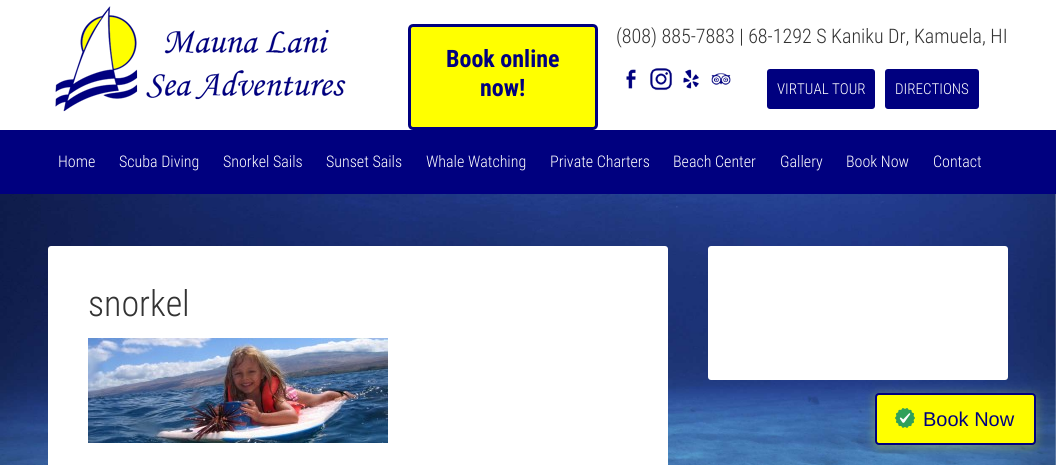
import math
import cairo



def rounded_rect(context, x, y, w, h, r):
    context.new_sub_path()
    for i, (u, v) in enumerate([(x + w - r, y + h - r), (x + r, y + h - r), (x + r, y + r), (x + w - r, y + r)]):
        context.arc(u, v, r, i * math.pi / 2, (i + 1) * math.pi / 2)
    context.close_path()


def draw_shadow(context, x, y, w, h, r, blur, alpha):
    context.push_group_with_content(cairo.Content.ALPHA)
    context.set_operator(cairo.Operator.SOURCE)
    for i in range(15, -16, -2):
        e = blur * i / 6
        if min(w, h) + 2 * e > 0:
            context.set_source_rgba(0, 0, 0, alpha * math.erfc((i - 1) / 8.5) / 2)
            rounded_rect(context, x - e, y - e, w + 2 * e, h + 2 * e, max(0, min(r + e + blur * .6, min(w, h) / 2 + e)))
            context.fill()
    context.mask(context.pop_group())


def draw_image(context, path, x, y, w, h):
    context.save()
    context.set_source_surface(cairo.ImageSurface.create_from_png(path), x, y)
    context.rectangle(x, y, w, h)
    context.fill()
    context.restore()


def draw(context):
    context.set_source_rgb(1, 1, 1)
    context.paint()
    draw_image(context, "images/1.png", 55, 6, 291, 106)
    context.set_source_rgb(1, 1, 0)
    rounded_rect(context, 409.5, 25.5, 187, 103, 3.5)
    context.fill_preserve()
    context.set_source_rgb(0, 0, 127 / 255)
    context.set_line_width(3)
    context.stroke()
    draw_image(context, "images/2.png", 626, 69, 10, 20)
    draw_image(context, "images/3.png", 650, 68, 23, 23)
    draw_image(context, "images/4.png", 683, 69, 16, 20)
    draw_image(context, "images/5.png", 711, 73, 20, 12)
    rounded_rect(context, 767, 69, 108, 40, 3)
    context.fill()
    rounded_rect(context, 885, 69, 94, 40, 3)
    context.fill()
    context.rectangle(0, 130, 1056, 64)
    context.fill()
    draw_image(context, "images/7.png", 0, 194, 1056, 271)
    context.set_source_rgb(1, 1, 1)
    rounded_rect(context, 48, 246, 620, 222, 3)
    context.fill()
    draw_image(context, "images/6.png", 88, 338, 300, 105)
    rounded_rect(context, 708, 246, 300, 134, 3)
    context.fill()
    context.set_source_rgb(1, 1, 0)
    draw_shadow(context, 875, 395, 161, 52, 4, 5, 0.3)
    context.set_source_rgb(1, 1, 0)
    rounded_rect(context, 876, 394, 159, 50, 3)
    context.fill_preserve()
    context.set_source_rgb(0, 0, 127 / 255)
    context.set_line_width(2)
    context.stroke()
    draw_image(context, "images/8.png", 895, 408, 20, 20)
    context.select_font_face("Roboto Condensed", cairo.FontSlant.NORMAL, cairo.FontWeight.BOLD)
    context.set_font_size(24)
    context.move_to(446, 67)
    context.show_text("Book online")
    context.move_to(480, 96)
    context.show_text("now!")
    context.select_font_face("Roboto Condensed Light")
    context.set_font_size(20)
    context.set_source_rgb(51 / 255, 51 / 255, 51 / 255)
    context.move_to(616, 43)
    context.show_text("(808) 885-7883 | 68-1292 S Kaniku Dr, Kamuela, HI")
    context.set_font_size(15)
    context.set_source_rgb(1, 1, 1)
    context.move_to(777, 94)
    context.show_text("VIRTUAL TOUR")
    context.move_to(895, 94)
    context.show_text("DIRECTIONS")
    context.set_font_size(16)
    context.move_to(58, 167)
    context.show_text("Home")
    context.move_to(119, 167)
    context.show_text("Scuba Diving")
    context.move_to(223, 167)
    context.show_text("Snorkel Sails")
    context.move_to(326, 167)
    context.show_text("Sunset Sails")
    context.move_to(426, 167)
    context.show_text("Whale Watching")
    context.move_to(550, 167)
    context.show_text("Private Charters")
    context.move_to(673, 167)
    context.show_text("Beach Center")
    context.move_to(780, 167)
    context.show_text("Gallery")
    context.move_to(846, 167)
    context.show_text("Book Now")
    context.move_to(933, 167)
    context.show_text("Contact")
    context.set_font_size(36)
    context.set_source_rgb(51 / 255, 51 / 255, 51 / 255)
    context.move_to(88, 316)
    context.show_text("snorkel")
    context.select_font_face("Liberation Sans")
    context.set_font_size(20)
    context.set_source_rgb(0, 0, 127 / 255)
    context.move_to(923, 426)
    context.show_text("Book Now")


surface = cairo.ImageSurface(cairo.Format.RGB24, 1056, 465)
context = cairo.Context(surface)
options = cairo.FontOptions()
options.set_hint_metrics(cairo.HintMetrics.OFF)
options.set_hint_style(cairo.HintStyle.NONE)
context.set_font_options(options)
context.set_miter_limit(4)
draw(context)
surface.write_to_png("out.png")
